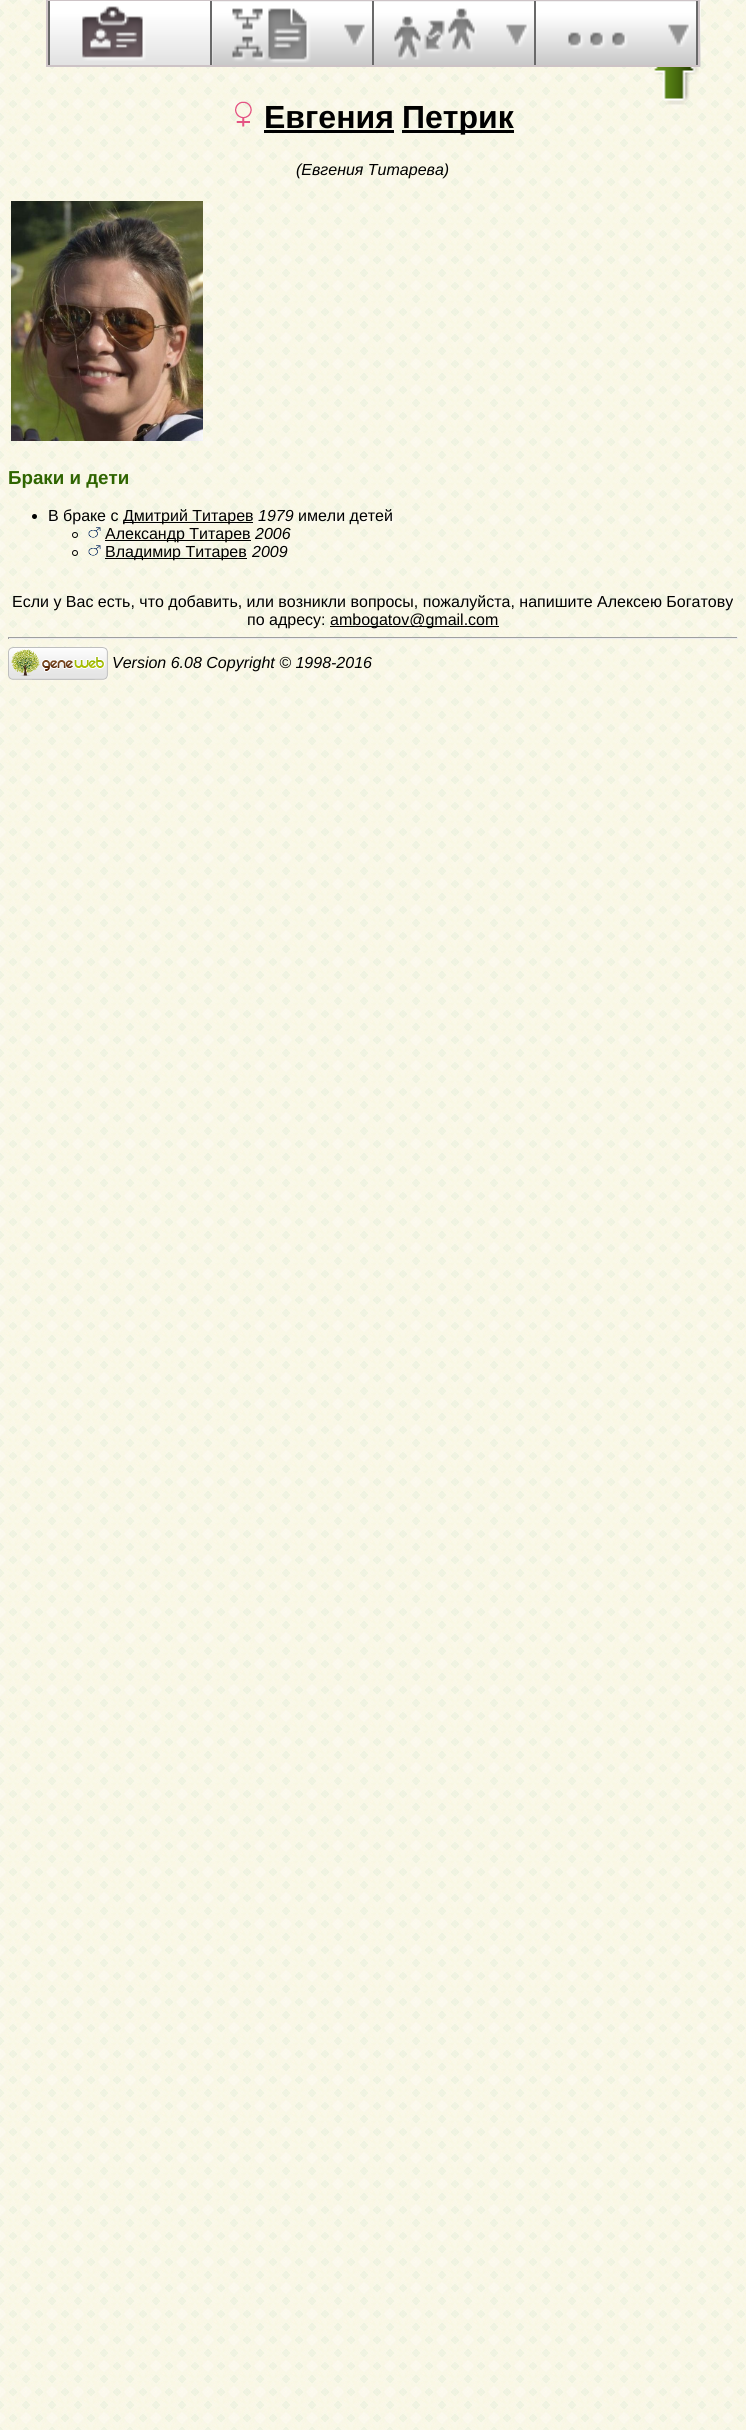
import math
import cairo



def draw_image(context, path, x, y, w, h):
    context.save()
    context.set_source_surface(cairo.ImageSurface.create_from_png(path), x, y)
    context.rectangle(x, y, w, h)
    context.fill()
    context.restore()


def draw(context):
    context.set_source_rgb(1, 1, 1)
    context.paint()
    draw_image(context, "images/1.png", 0, 0, 746, 2430)
    draw_image(context, "images/2.png", 212, 0, 489, 67)
    context.rectangle(47, 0, 652, 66)
    context.set_source_rgb(205 / 255, 195 / 255, 198 / 255)
    context.stroke()
    draw_image(context, "images/3.png", 50, 1, 163, 64)
    context.set_source_rgb(105 / 255, 105 / 255, 105 / 255)
    context.rectangle(210, 1, 2, 64)
    context.fill()
    context.rectangle(48, 1, 2, 64)
    context.fill()
    draw_image(context, "images/4.png", 82, 6, 64, 55)
    context.rectangle(372, 1, 2, 64)
    context.fill()
    draw_image(context, "images/5.png", 232, 8, 79, 55)
    draw_image(context, "images/6.png", 344, 24, 23, 23)
    context.rectangle(534, 1, 2, 64)
    context.fill()
    draw_image(context, "images/7.png", 394, 8, 83, 52)
    draw_image(context, "images/6.png", 506, 24, 23, 23)
    context.rectangle(696, 1, 2, 64)
    context.fill()
    draw_image(context, "images/8.png", 568, 32, 60, 17)
    draw_image(context, "images/6.png", 668, 24, 23, 23)
    draw_image(context, "images/9.png", 654, 67, 45, 38)
    draw_image(context, "images/10.png", 235, 101, 17, 26)
    context.set_source_rgb(0, 0, 0)
    context.rectangle(264, 130, 130, 3)
    context.fill()
    context.rectangle(402, 130, 112, 3)
    context.fill()
    draw_image(context, "images/11.png", 11, 201, 192, 240)
    context.arc(34.5, 516.5, 2.5, 0, 2 * math.pi)
    context.fill()
    context.rectangle(123, 522, 130, 1)
    context.fill()
    context.arc(75, 535, 2.5, 0, 2 * math.pi)
    context.set_line_width(1)
    context.stroke()
    draw_image(context, "images/12.png", 88, 527, 13, 11)
    context.rectangle(105, 540, 146, 1)
    context.fill()
    context.arc(75, 553, 2.5, 0, 2 * math.pi)
    context.stroke()
    draw_image(context, "images/13.png", 88, 545, 13, 11)
    context.rectangle(105, 558, 142, 1)
    context.fill()
    context.rectangle(330, 626, 169, 1)
    context.fill()
    context.set_source_rgb(159 / 255, 159 / 255, 159 / 255)
    context.rectangle(8, 637, 730, 1)
    context.fill()
    context.set_source_rgb(238 / 255, 238 / 255, 238 / 255)
    context.rectangle(737, 637, 1, 2)
    context.fill()
    context.rectangle(8, 638, 730, 1)
    context.fill()
    context.set_source_rgb(159 / 255, 159 / 255, 159 / 255)
    context.rectangle(8, 637, 1, 2)
    context.fill()
    draw_image(context, "images/14.png", 8, 647, 100, 33)
    context.select_font_face("Liberation Sans", cairo.FontSlant.NORMAL, cairo.FontWeight.BOLD)
    context.set_font_size(32)
    context.set_source_rgb(0, 0, 0)
    context.move_to(264, 128)
    context.show_text("Евгения")
    context.move_to(402, 128)
    context.show_text("Петрик")
    context.select_font_face("Liberation Sans", cairo.FontSlant.ITALIC)
    context.set_font_size(16)
    context.move_to(296, 175)
    context.show_text("(Евгения Титарева)")
    context.select_font_face("Liberation Sans", cairo.FontSlant.NORMAL, cairo.FontWeight.BOLD)
    context.set_font_size(18.75)
    context.set_source_rgb(47 / 255, 100 / 255, 0)
    context.move_to(8, 484)
    context.show_text("Браки и дети")
    context.select_font_face("Liberation Sans")
    context.set_font_size(16)
    context.set_source_rgb(0, 0, 0)
    context.move_to(48, 521)
    context.show_text("В браке с")
    context.move_to(123, 521)
    context.show_text("Дмитрий Титарев")
    context.select_font_face("Liberation Sans", cairo.FontSlant.ITALIC)
    context.move_to(258, 521)
    context.show_text("1979")
    context.select_font_face("Liberation Sans")
    context.move_to(298, 521)
    context.show_text("имели детей")
    context.move_to(105, 539)
    context.show_text("Александр Титарев")
    context.select_font_face("Liberation Sans", cairo.FontSlant.ITALIC)
    context.move_to(255, 539)
    context.show_text("2006")
    context.select_font_face("Liberation Sans")
    context.move_to(105, 557)
    context.show_text("Владимир Титарев")
    context.select_font_face("Liberation Sans", cairo.FontSlant.ITALIC)
    context.move_to(252, 557)
    context.show_text("2009")
    context.select_font_face("Liberation Sans")
    context.move_to(12, 607)
    context.show_text("Если у Вас есть, что добавить, или возникли вопросы, пожалуйста, напишите Алексею Богатову")
    context.move_to(247, 625)
    context.show_text("по адресу:")
    context.move_to(330, 625)
    context.show_text("ambogatov@gmail.com")
    context.select_font_face("Liberation Sans", cairo.FontSlant.ITALIC)
    context.move_to(112, 668)
    context.show_text("Version 6.08 Copyright © 1998-2016")


surface = cairo.ImageSurface(cairo.Format.RGB24, 746, 2430)
context = cairo.Context(surface)
options = cairo.FontOptions()
options.set_hint_metrics(cairo.HintMetrics.OFF)
options.set_hint_style(cairo.HintStyle.NONE)
context.set_font_options(options)
context.set_miter_limit(4)
draw(context)
surface.write_to_png("out.png")
